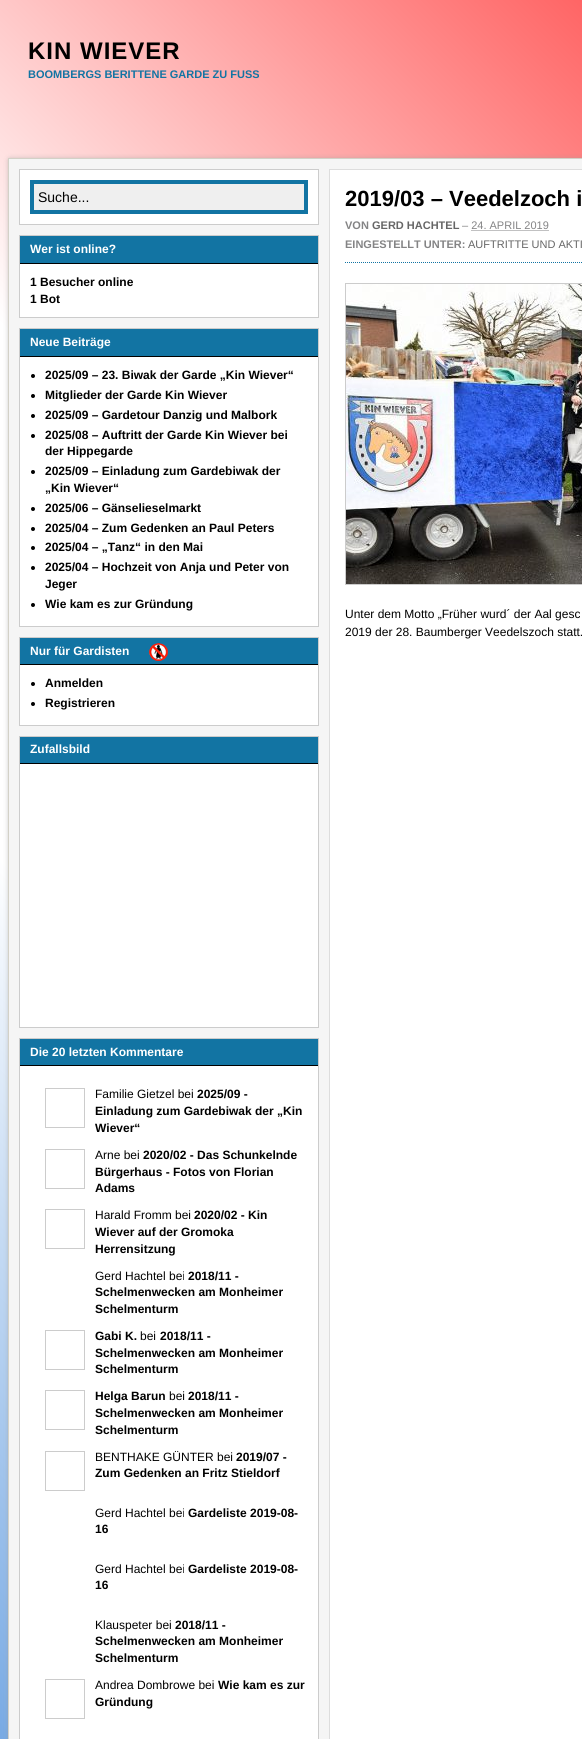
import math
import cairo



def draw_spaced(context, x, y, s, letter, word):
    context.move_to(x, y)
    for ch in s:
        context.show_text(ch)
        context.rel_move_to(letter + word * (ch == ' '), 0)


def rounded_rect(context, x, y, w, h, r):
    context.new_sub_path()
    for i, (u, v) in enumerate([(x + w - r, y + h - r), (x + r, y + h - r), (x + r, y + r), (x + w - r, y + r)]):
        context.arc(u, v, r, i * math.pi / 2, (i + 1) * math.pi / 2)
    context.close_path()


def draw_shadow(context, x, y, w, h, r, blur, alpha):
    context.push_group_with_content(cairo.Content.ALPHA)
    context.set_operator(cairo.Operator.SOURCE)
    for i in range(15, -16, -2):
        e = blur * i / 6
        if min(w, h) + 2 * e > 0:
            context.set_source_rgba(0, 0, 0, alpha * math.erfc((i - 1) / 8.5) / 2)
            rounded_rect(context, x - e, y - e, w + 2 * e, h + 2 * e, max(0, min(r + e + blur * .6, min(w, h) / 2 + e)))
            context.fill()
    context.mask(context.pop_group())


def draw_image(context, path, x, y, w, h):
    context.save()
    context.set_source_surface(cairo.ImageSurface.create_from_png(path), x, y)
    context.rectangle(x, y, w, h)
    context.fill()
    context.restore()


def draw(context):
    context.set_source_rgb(1, 1, 1)
    context.paint()
    gradient = cairo.LinearGradient(-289, 1450, 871, 289)
    gradient.add_color_stop_rgba(0, 120 / 255, 170 / 255, 228 / 255, 1)
    gradient.add_color_stop_rgba(0.38, 1, 1, 1, 1)
    gradient.add_color_stop_rgba(0.61, 1, 1, 1, 1)
    gradient.add_color_stop_rgba(1, 1, 101 / 255, 101 / 255, 1)
    context.set_source(gradient)
    context.rectangle(0, 0, 582, 1739)
    context.fill()
    context.set_source_rgb(153 / 255, 153 / 255, 153 / 255)
    draw_shadow(context, 10, 160, 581, 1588, 0, 3, 1)
    context.set_source_rgb(245 / 255, 245 / 255, 245 / 255)
    context.rectangle(8.5, 158.5, 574, 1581)
    context.fill_preserve()
    context.set_source_rgb(211 / 255, 209 / 255, 199 / 255)
    context.set_line_width(1)
    context.stroke()
    context.set_source_rgb(1, 1, 1)
    context.rectangle(19.5, 169.5, 299, 55)
    context.fill_preserve()
    context.set_source_rgb(204 / 255, 204 / 255, 204 / 255)
    context.stroke()
    context.set_source_rgb(239 / 255, 239 / 255, 239 / 255)
    context.rectangle(32, 182, 274, 30)
    context.fill_preserve()
    context.set_source_rgb(18 / 255, 116 / 255, 163 / 255)
    context.set_line_width(4)
    context.stroke()
    context.set_source_rgb(1, 1, 1)
    context.rectangle(20, 264, 298, 53)
    context.fill()
    context.rectangle(19.5, 235.5, 299, 82)
    context.set_source_rgb(204 / 255, 204 / 255, 204 / 255)
    context.set_line_width(1)
    context.stroke()
    context.set_source_rgb(18 / 255, 116 / 255, 163 / 255)
    context.rectangle(20, 236, 298, 27)
    context.fill()
    context.set_source_rgb(0, 0, 0)
    context.rectangle(20, 263, 298, 1)
    context.fill()
    context.set_source_rgb(1, 1, 1)
    context.rectangle(20, 357, 298, 269)
    context.fill()
    context.rectangle(19.5, 328.5, 299, 298)
    context.set_source_rgb(204 / 255, 204 / 255, 204 / 255)
    context.stroke()
    context.set_source_rgb(18 / 255, 116 / 255, 163 / 255)
    context.rectangle(20, 329, 298, 27)
    context.fill()
    context.set_source_rgb(0, 0, 0)
    context.rectangle(20, 356, 298, 1)
    context.fill()
    context.arc(33, 376, 2, 0, 2 * math.pi)
    context.fill()
    context.arc(33, 396, 2, 0, 2 * math.pi)
    context.fill()
    context.arc(33, 416, 2, 0, 2 * math.pi)
    context.fill()
    context.arc(33, 436, 2, 0, 2 * math.pi)
    context.fill()
    context.arc(33, 472, 2, 0, 2 * math.pi)
    context.fill()
    context.arc(33, 509, 2, 0, 2 * math.pi)
    context.fill()
    context.arc(33, 529, 2, 0, 2 * math.pi)
    context.fill()
    context.arc(33, 548, 2, 0, 2 * math.pi)
    context.fill()
    context.arc(33, 568, 2, 0, 2 * math.pi)
    context.fill()
    context.arc(33, 605, 2, 0, 2 * math.pi)
    context.fill()
    context.set_source_rgb(1, 1, 1)
    context.rectangle(20, 665, 298, 60)
    context.fill()
    context.rectangle(19.5, 637.5, 299, 88)
    context.set_source_rgb(204 / 255, 204 / 255, 204 / 255)
    context.stroke()
    context.set_source_rgb(18 / 255, 116 / 255, 163 / 255)
    context.rectangle(20, 638, 298, 26)
    context.fill()
    context.set_source_rgb(0, 0, 0)
    context.rectangle(20, 664, 298, 1)
    context.fill()
    draw_image(context, "images/1.png", 149, 643, 19, 18)
    context.arc(33, 684, 2, 0, 2 * math.pi)
    context.fill()
    context.arc(33, 704, 2, 0, 2 * math.pi)
    context.fill()
    context.set_source_rgb(1, 1, 1)
    context.rectangle(20, 764, 298, 263)
    context.fill()
    context.rectangle(19.5, 736.5, 299, 291)
    context.set_source_rgb(204 / 255, 204 / 255, 204 / 255)
    context.stroke()
    context.set_source_rgb(18 / 255, 116 / 255, 163 / 255)
    context.rectangle(20, 737, 298, 26)
    context.fill()
    context.set_source_rgb(0, 0, 0)
    context.rectangle(20, 763, 298, 1)
    context.fill()
    context.set_source_rgb(1, 1, 1)
    context.rectangle(20, 1066, 298, 673)
    context.fill()
    context.rectangle(19.5, 1038.5, 299, 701)
    context.set_source_rgb(204 / 255, 204 / 255, 204 / 255)
    context.stroke()
    context.set_source_rgb(18 / 255, 116 / 255, 163 / 255)
    context.rectangle(20, 1039, 298, 26)
    context.fill()
    context.set_source_rgb(0, 0, 0)
    context.rectangle(20, 1065, 298, 1)
    context.fill()
    context.rectangle(45.5, 1088.5, 39, 39)
    context.set_source_rgb(204 / 255, 204 / 255, 204 / 255)
    context.stroke()
    context.rectangle(45.5, 1149.5, 39, 39)
    context.stroke()
    context.rectangle(45.5, 1209.5, 39, 39)
    context.stroke()
    context.rectangle(45.5, 1330.5, 39, 39)
    context.stroke()
    context.rectangle(45.5, 1390.5, 39, 39)
    context.stroke()
    context.rectangle(45.5, 1451.5, 39, 39)
    context.stroke()
    context.rectangle(45.5, 1679.5, 39, 39)
    context.stroke()
    context.set_source_rgb(1, 1, 1)
    context.rectangle(329.5, 169.5, 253, 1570)
    context.fill_preserve()
    context.set_source_rgb(221 / 255, 221 / 255, 221 / 255)
    context.stroke()
    context.new_path()
    context.move_to(345, 262.5)
    context.line_to(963, 262.5)
    context.set_source_rgb(18 / 255, 116 / 255, 163 / 255)
    context.set_dash([1, 1])
    context.stroke()
    context.new_path()
    context.move_to(471.5, 230.5)
    context.line_to(549, 230.5)
    context.set_source_rgb(132 / 255, 132 / 255, 133 / 255)
    context.stroke()
    context.rectangle(345.5, 283.5, 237, 301)
    context.set_source_rgb(204 / 255, 204 / 255, 204 / 255)
    context.set_dash([])
    context.stroke()
    draw_image(context, "images/2.png", 346, 284, 236, 300)
    context.select_font_face("Liberation Sans", cairo.FontSlant.NORMAL, cairo.FontWeight.BOLD)
    context.set_font_size(24)
    context.set_source_rgb(0, 0, 0)
    draw_spaced(context, 28, 59, "KIN WIEVER", 1, 0)
    context.set_font_size(11)
    context.set_source_rgb(18 / 255, 116 / 255, 163 / 255)
    context.move_to(28, 78)
    context.show_text("BOOMBERGS BERITTENE GARDE ZU FUSS")
    context.select_font_face("Liberation Sans")
    context.set_font_size(14)
    context.set_source_rgb(0, 0, 0)
    context.move_to(38, 202)
    context.show_text("Suche...")
    context.select_font_face("Liberation Sans", cairo.FontSlant.NORMAL, cairo.FontWeight.BOLD)
    context.set_font_size(12)
    context.set_source_rgb(1, 1, 1)
    context.move_to(30, 253)
    context.show_text("Wer ist online?")
    context.set_source_rgb(0, 0, 0)
    context.move_to(30, 286)
    context.show_text("1 Besucher online")
    context.move_to(30, 303)
    context.show_text("1 Bot")
    context.set_source_rgb(1, 1, 1)
    context.move_to(30, 346)
    context.show_text("Neue Beiträge")
    context.set_source_rgb(0, 0, 0)
    context.move_to(45, 379)
    context.show_text("2025/09 – 23. Biwak der Garde „Kin Wiever“")
    context.move_to(45, 399)
    context.show_text("Mitglieder der Garde Kin Wiever")
    context.move_to(45, 419)
    context.show_text("2025/09 – Gardetour Danzig und Malbork")
    context.move_to(45, 439)
    context.show_text("2025/08 – Auftritt der Garde Kin Wiever bei")
    context.move_to(45, 455)
    context.show_text("der Hippegarde")
    context.move_to(45, 475)
    context.show_text("2025/09 – Einladung zum Gardebiwak der")
    context.move_to(45, 492)
    context.show_text("„Kin Wiever“")
    context.move_to(45, 512)
    context.show_text("2025/06 – Gänselieselmarkt")
    context.move_to(45, 532)
    context.show_text("2025/04 – Zum Gedenken an Paul Peters")
    context.move_to(45, 551)
    context.show_text("2025/04 – „Tanz“ in den Mai")
    context.move_to(45, 571)
    context.show_text("2025/04 – Hochzeit von Anja und Peter von")
    context.move_to(45, 588)
    context.show_text("Jeger")
    context.move_to(45, 608)
    context.show_text("Wie kam es zur Gründung")
    context.set_source_rgb(1, 1, 1)
    context.move_to(30, 655)
    context.show_text("Nur für Gardisten")
    context.set_source_rgb(0, 0, 0)
    context.move_to(45, 687)
    context.show_text("Anmelden")
    context.move_to(45, 707)
    context.show_text("Registrieren")
    context.set_source_rgb(1, 1, 1)
    context.move_to(30, 753)
    context.show_text("Zufallsbild")
    context.move_to(30, 1056)
    context.show_text("Die 20 letzten Kommentare")
    context.select_font_face("Liberation Sans")
    context.set_source_rgb(0, 0, 0)
    context.move_to(95, 1098)
    context.show_text("Familie Gietzel bei")
    context.select_font_face("Liberation Sans", cairo.FontSlant.NORMAL, cairo.FontWeight.BOLD)
    context.move_to(197, 1098)
    context.show_text("2025/09 -")
    context.move_to(95, 1115)
    context.show_text("Einladung zum Gardebiwak der „Kin")
    context.move_to(95, 1132)
    context.show_text("Wiever“")
    context.select_font_face("Liberation Sans")
    context.move_to(95, 1159)
    context.show_text("Arne bei")
    context.select_font_face("Liberation Sans", cairo.FontSlant.NORMAL, cairo.FontWeight.BOLD)
    context.move_to(143, 1159)
    context.show_text("2020/02 - Das Schunkelnde")
    context.move_to(95, 1176)
    context.show_text("Bürgerhaus - Fotos von Florian")
    context.move_to(95, 1192)
    context.show_text("Adams")
    context.select_font_face("Liberation Sans")
    context.move_to(95, 1219)
    context.show_text("Harald Fromm bei")
    context.select_font_face("Liberation Sans", cairo.FontSlant.NORMAL, cairo.FontWeight.BOLD)
    context.move_to(194, 1219)
    context.show_text("2020/02 - Kin")
    context.move_to(95, 1236)
    context.show_text("Wiever auf der Gromoka")
    context.move_to(95, 1253)
    context.show_text("Herrensitzung")
    context.select_font_face("Liberation Sans")
    context.move_to(95, 1280)
    context.show_text("Gerd Hachtel bei")
    context.select_font_face("Liberation Sans", cairo.FontSlant.NORMAL, cairo.FontWeight.BOLD)
    context.move_to(188, 1280)
    context.show_text("2018/11 -")
    context.move_to(95, 1296)
    context.show_text("Schelmenwecken am Monheimer")
    context.move_to(95, 1313)
    context.show_text("Schelmenturm")
    context.move_to(95, 1340)
    context.show_text("Gabi K.")
    context.select_font_face("Liberation Sans")
    context.move_to(140, 1340)
    context.show_text("bei")
    context.select_font_face("Liberation Sans", cairo.FontSlant.NORMAL, cairo.FontWeight.BOLD)
    context.move_to(160, 1340)
    context.show_text("2018/11 -")
    context.move_to(95, 1357)
    context.show_text("Schelmenwecken am Monheimer")
    context.move_to(95, 1373)
    context.show_text("Schelmenturm")
    context.move_to(95, 1400)
    context.show_text("Helga Barun")
    context.select_font_face("Liberation Sans")
    context.move_to(169, 1400)
    context.show_text("bei")
    context.select_font_face("Liberation Sans", cairo.FontSlant.NORMAL, cairo.FontWeight.BOLD)
    context.move_to(188, 1400)
    context.show_text("2018/11 -")
    context.move_to(95, 1417)
    context.show_text("Schelmenwecken am Monheimer")
    context.move_to(95, 1434)
    context.show_text("Schelmenturm")
    context.select_font_face("Liberation Sans")
    context.move_to(95, 1461)
    context.show_text("BENTHAKE GÜNTER bei")
    context.select_font_face("Liberation Sans", cairo.FontSlant.NORMAL, cairo.FontWeight.BOLD)
    context.move_to(236, 1461)
    context.show_text("2019/07 -")
    context.move_to(95, 1477)
    context.show_text("Zum Gedenken an Fritz Stieldorf")
    context.select_font_face("Liberation Sans")
    context.move_to(95, 1517)
    context.show_text("Gerd Hachtel bei")
    context.select_font_face("Liberation Sans", cairo.FontSlant.NORMAL, cairo.FontWeight.BOLD)
    context.move_to(188, 1517)
    context.show_text("Gardeliste 2019-08-")
    context.move_to(95, 1533)
    context.show_text("16")
    context.select_font_face("Liberation Sans")
    context.move_to(95, 1573)
    context.show_text("Gerd Hachtel bei")
    context.select_font_face("Liberation Sans", cairo.FontSlant.NORMAL, cairo.FontWeight.BOLD)
    context.move_to(188, 1573)
    context.show_text("Gardeliste 2019-08-")
    context.move_to(95, 1589)
    context.show_text("16")
    context.select_font_face("Liberation Sans")
    context.move_to(95, 1629)
    context.show_text("Klauspeter bei")
    context.select_font_face("Liberation Sans", cairo.FontSlant.NORMAL, cairo.FontWeight.BOLD)
    context.move_to(175, 1629)
    context.show_text("2018/11 -")
    context.move_to(95, 1645)
    context.show_text("Schelmenwecken am Monheimer")
    context.move_to(95, 1662)
    context.show_text("Schelmenturm")
    context.select_font_face("Liberation Sans")
    context.move_to(95, 1689)
    context.show_text("Andrea Dombrowe bei")
    context.select_font_face("Liberation Sans", cairo.FontSlant.NORMAL, cairo.FontWeight.BOLD)
    context.move_to(218, 1689)
    context.show_text("Wie kam es zur")
    context.move_to(95, 1706)
    context.show_text("Gründung")
    context.set_font_size(22)
    context.move_to(345, 206)
    context.show_text("2019/03 – Veedelzoch i")
    context.set_font_size(11)
    context.set_source_rgb(132 / 255, 132 / 255, 133 / 255)
    context.move_to(345, 229)
    context.show_text("VON")
    context.set_source_rgb(102 / 255, 102 / 255, 102 / 255)
    context.move_to(372, 229)
    context.show_text("GERD HACHTEL")
    context.select_font_face("Liberation Sans")
    context.set_source_rgb(132 / 255, 132 / 255, 133 / 255)
    context.move_to(462, 229)
    context.show_text("– 24. APRIL 2019")
    context.select_font_face("Liberation Sans", cairo.FontSlant.NORMAL, cairo.FontWeight.BOLD)
    context.move_to(345, 248)
    context.show_text("EINGESTELLT UNTER:")
    context.select_font_face("Liberation Sans")
    context.set_source_rgb(102 / 255, 102 / 255, 102 / 255)
    context.move_to(468, 248)
    context.show_text("AUFTRITTE UND AKTI")
    context.set_font_size(12)
    context.set_source_rgb(0, 0, 0)
    context.move_to(345, 618)
    context.show_text("Unter dem Motto „Früher wurd´ der Aal gesc")
    context.move_to(345, 636)
    context.show_text("2019 der 28. Baumberger Veedelszoch statt.")


surface = cairo.ImageSurface(cairo.Format.RGB24, 582, 1739)
context = cairo.Context(surface)
options = cairo.FontOptions()
options.set_hint_metrics(cairo.HintMetrics.OFF)
options.set_hint_style(cairo.HintStyle.NONE)
context.set_font_options(options)
context.set_miter_limit(4)
draw(context)
surface.write_to_png("out.png")
